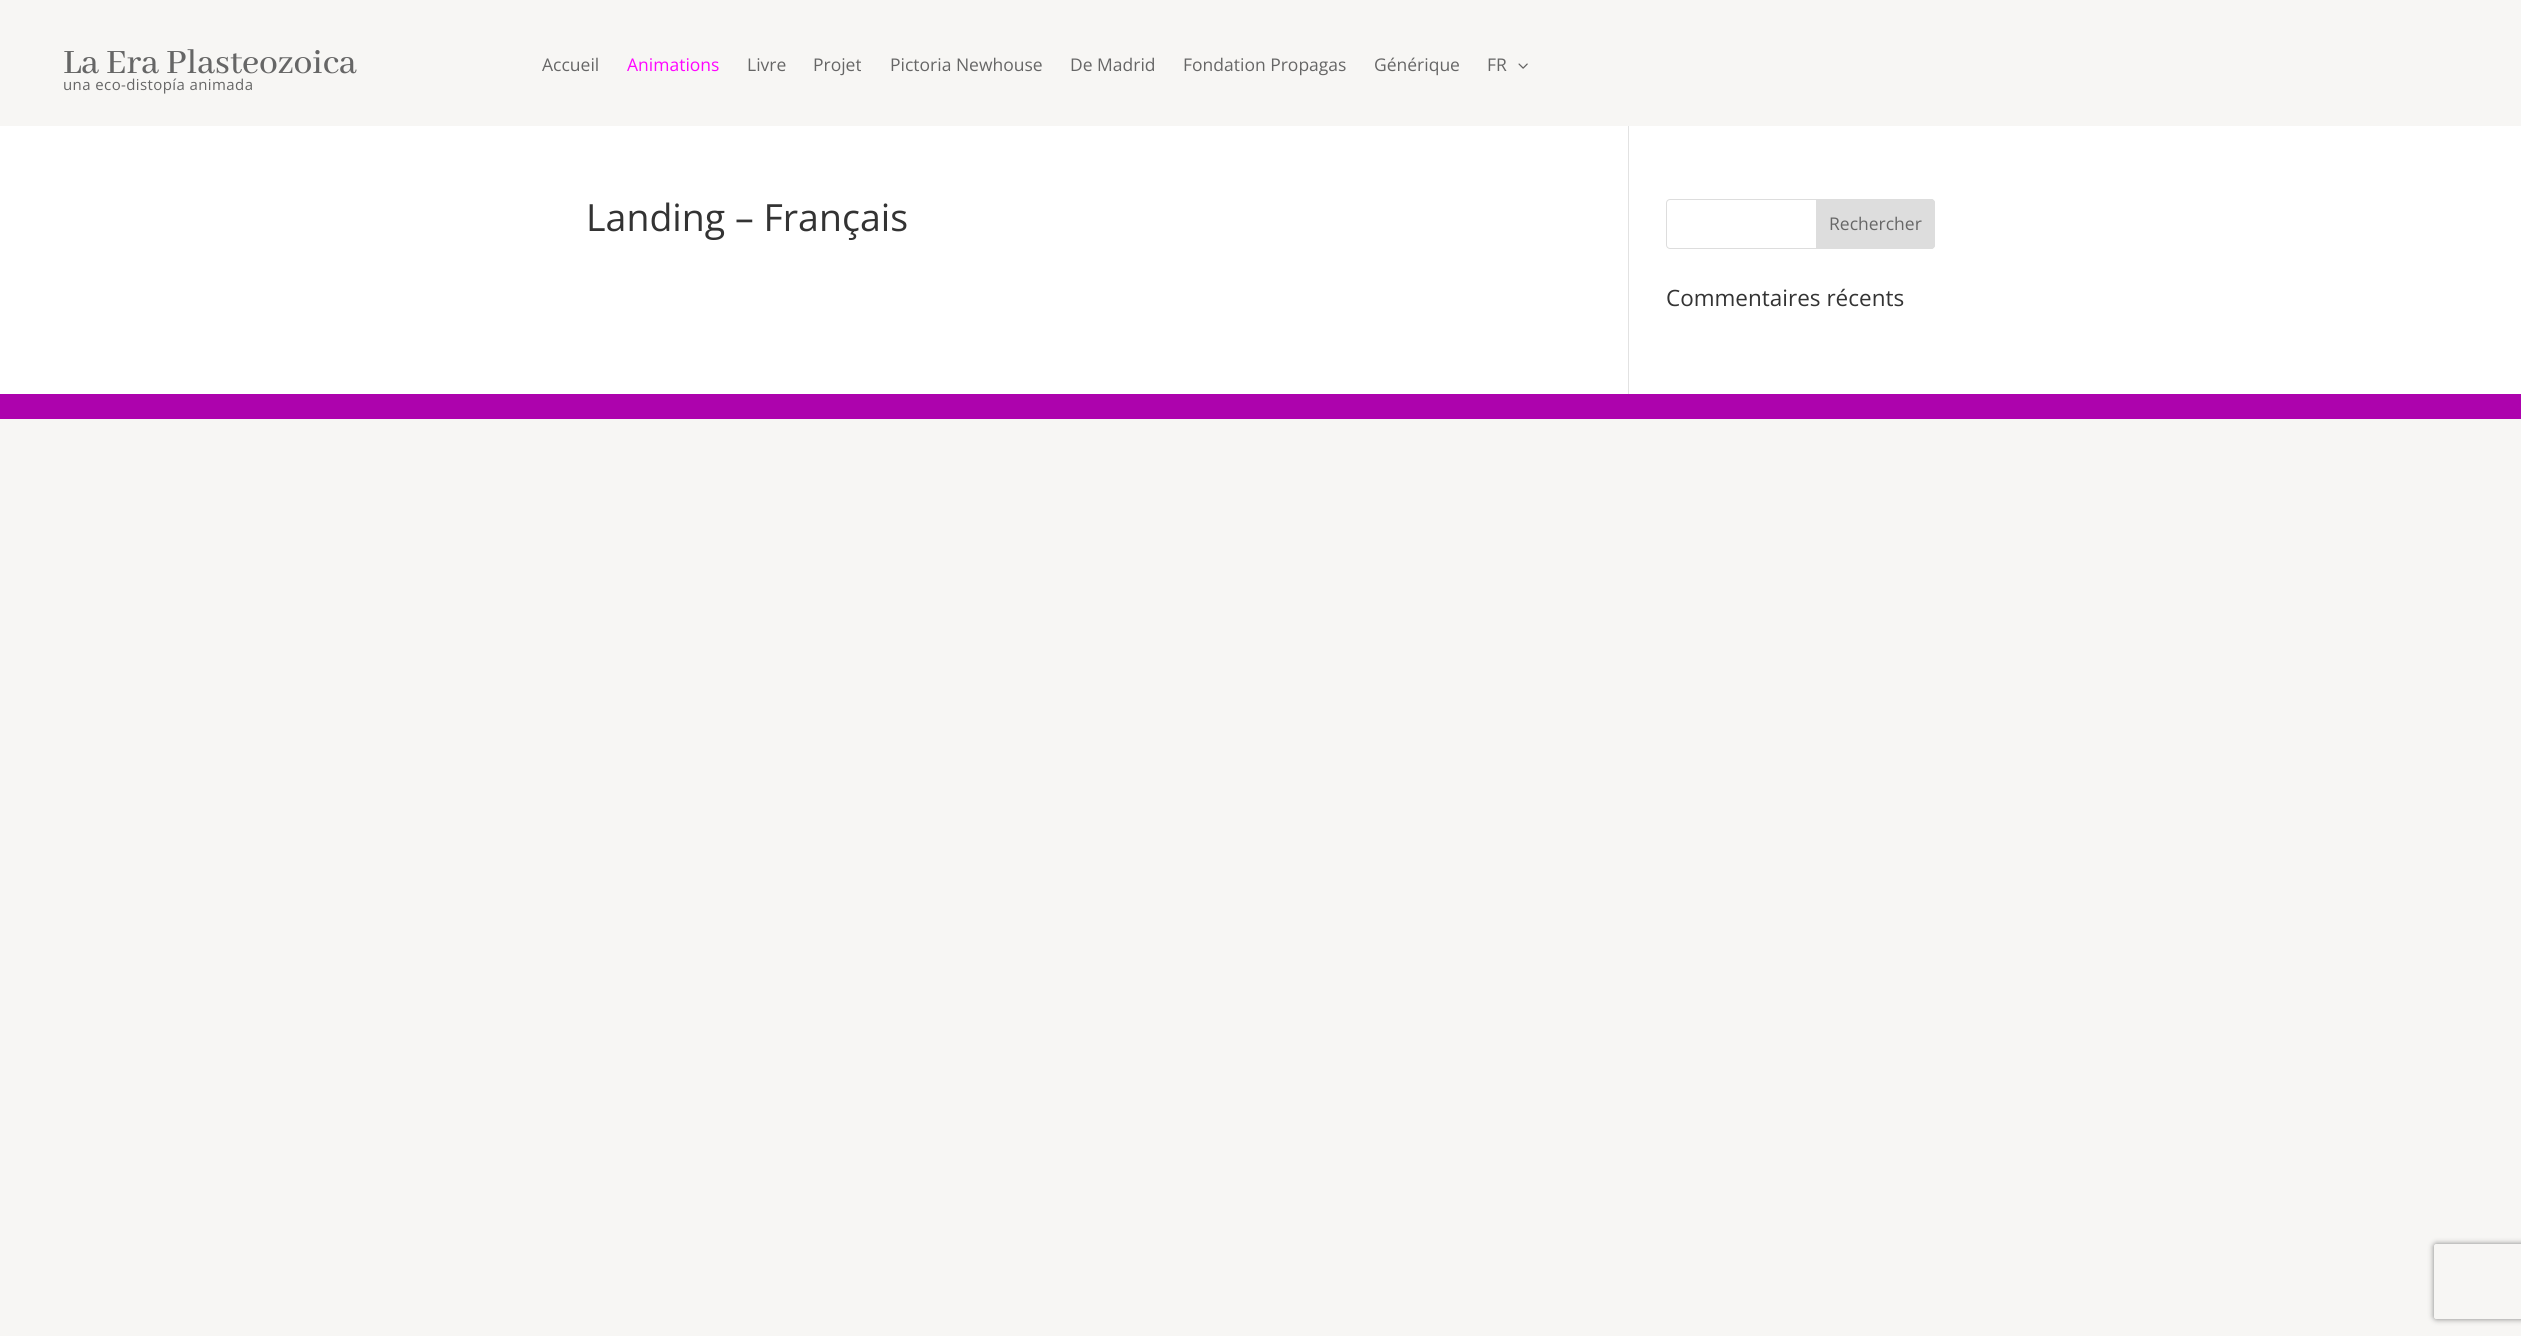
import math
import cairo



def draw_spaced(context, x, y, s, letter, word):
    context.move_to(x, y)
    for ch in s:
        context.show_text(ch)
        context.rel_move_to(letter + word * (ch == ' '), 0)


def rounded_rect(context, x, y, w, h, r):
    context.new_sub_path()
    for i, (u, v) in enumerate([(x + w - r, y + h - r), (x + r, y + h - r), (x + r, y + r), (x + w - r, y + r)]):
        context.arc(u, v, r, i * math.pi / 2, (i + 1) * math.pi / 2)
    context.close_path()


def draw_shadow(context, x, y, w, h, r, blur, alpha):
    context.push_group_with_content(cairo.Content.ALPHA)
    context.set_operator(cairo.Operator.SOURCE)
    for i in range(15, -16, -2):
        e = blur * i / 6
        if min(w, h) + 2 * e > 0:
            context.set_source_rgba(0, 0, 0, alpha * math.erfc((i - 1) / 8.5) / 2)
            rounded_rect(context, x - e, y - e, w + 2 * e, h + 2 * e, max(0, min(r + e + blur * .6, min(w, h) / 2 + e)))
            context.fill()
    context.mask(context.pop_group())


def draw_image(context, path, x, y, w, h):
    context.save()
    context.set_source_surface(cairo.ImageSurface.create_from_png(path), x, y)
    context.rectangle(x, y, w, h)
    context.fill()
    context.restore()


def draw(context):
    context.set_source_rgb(247 / 255, 246 / 255, 244 / 255)
    context.paint()
    draw_image(context, "images/1.png", 1518, 63, 10, 6)
    context.set_source_rgb(1, 1, 1)
    context.rectangle(0, 126, 2521, 268)
    context.fill()
    context.set_source_rgb(226 / 255, 226 / 255, 226 / 255)
    context.rectangle(1628, 126, 1, 268)
    context.fill()
    rounded_rect(context, 1666.5, 199.5, 268, 49, 3.5)
    context.set_source_rgb(221 / 255, 221 / 255, 221 / 255)
    context.set_line_width(1)
    context.stroke()
    context.new_path()
    context.move_to(1816.5, 199.5)
    context.line_to(1931, 199.5)
    context.curve_to(1933, 199.5, 1934.5, 201, 1934.5, 203)
    context.line_to(1934.5, 245)
    context.curve_to(1934.5, 247, 1933, 248.5, 1931, 248.5)
    context.line_to(1816.5, 248.5)
    context.close_path()
    context.fill_preserve()
    context.stroke()
    context.set_source_rgb(173 / 255, 3 / 255, 173 / 255)
    context.rectangle(0, 394, 2521, 25)
    context.fill()
    context.save()
    context.set_fill_rule(cairo.FillRule.EVEN_ODD)
    context.new_path()
    context.move_to(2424, 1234)
    context.line_to(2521, 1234)
    context.line_to(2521, 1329)
    context.line_to(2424, 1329)
    context.close_path()
    context.move_to(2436.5, 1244)
    context.line_to(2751.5, 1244)
    context.curve_to(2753, 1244, 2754, 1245, 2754, 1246.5)
    context.line_to(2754, 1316.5)
    context.curve_to(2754, 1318, 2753, 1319, 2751.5, 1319)
    context.line_to(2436.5, 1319)
    context.curve_to(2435, 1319, 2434, 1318, 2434, 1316.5)
    context.line_to(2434, 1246.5)
    context.curve_to(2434, 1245, 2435, 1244, 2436.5, 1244)
    context.close_path()
    context.clip()
    context.set_source_rgb(128 / 255, 128 / 255, 128 / 255)
    draw_shadow(context, 2434, 1244, 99, 75, 2.5, 3, 1)
    context.restore()
    context.select_font_face("Abhaya Libre Medium Medium")
    context.set_font_size(37.5)
    context.set_source_rgb(102 / 255, 102 / 255, 102 / 255)
    context.move_to(63, 73)
    context.show_text("La Era Plasteozoica")
    context.select_font_face("Open Sans")
    context.set_font_size(15)
    draw_spaced(context, 63, 90, "una eco-distopía animada", 0.4, 0)
    context.set_font_size(17.5)
    context.move_to(542, 71)
    context.show_text("Accueil")
    context.set_source_rgb(1, 4 / 255, 1)
    context.move_to(627, 71)
    context.show_text("Animations")
    context.set_source_rgb(102 / 255, 102 / 255, 102 / 255)
    context.move_to(747, 71)
    context.show_text("Livre")
    context.move_to(813, 71)
    context.show_text("Projet")
    context.move_to(890, 71)
    context.show_text("Pictoria Newhouse")
    context.move_to(1070, 71)
    context.show_text("De Madrid")
    context.move_to(1183, 71)
    context.show_text("Fondation Propagas")
    context.move_to(1374, 71)
    context.show_text("Générique")
    context.move_to(1487, 71)
    context.show_text("FR")
    context.set_font_size(37.5)
    context.set_source_rgb(51 / 255, 51 / 255, 51 / 255)
    context.move_to(586, 231)
    context.show_text("Landing – Français")
    context.set_font_size(17.5)
    context.set_source_rgb(102 / 255, 102 / 255, 102 / 255)
    context.move_to(1829, 230)
    context.show_text("Rechercher")
    context.set_font_size(22.5)
    context.set_source_rgb(51 / 255, 51 / 255, 51 / 255)
    context.move_to(1666, 306)
    context.show_text("Commentaires récents")


surface = cairo.ImageSurface(cairo.Format.RGB24, 2521, 1336)
context = cairo.Context(surface)
options = cairo.FontOptions()
options.set_hint_metrics(cairo.HintMetrics.OFF)
options.set_hint_style(cairo.HintStyle.NONE)
context.set_font_options(options)
context.set_miter_limit(4)
draw(context)
surface.write_to_png("out.png")
